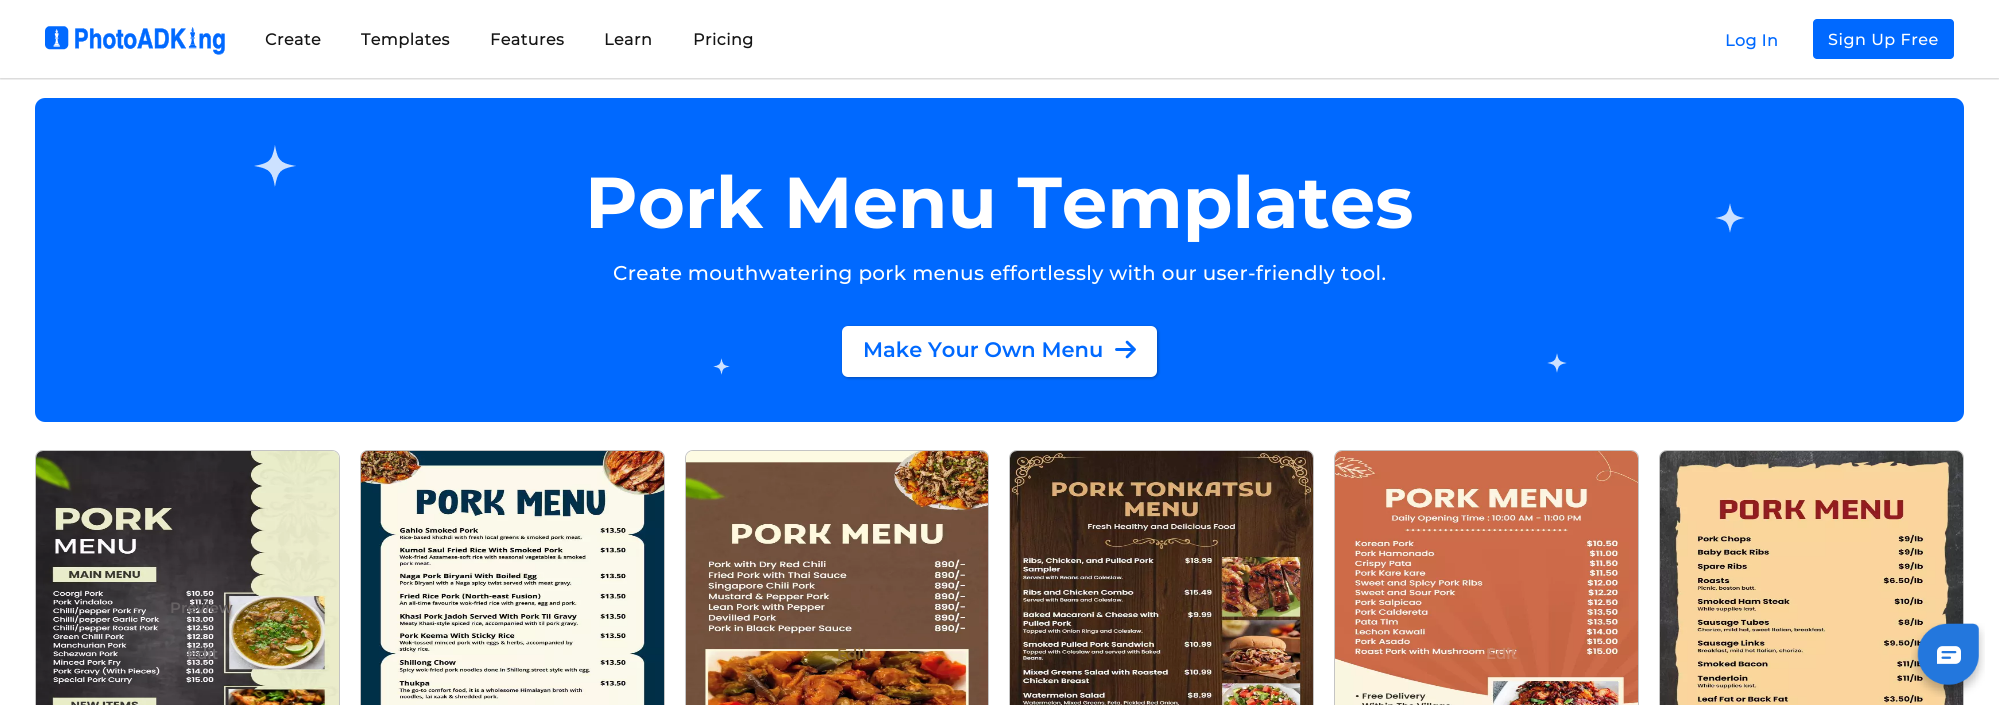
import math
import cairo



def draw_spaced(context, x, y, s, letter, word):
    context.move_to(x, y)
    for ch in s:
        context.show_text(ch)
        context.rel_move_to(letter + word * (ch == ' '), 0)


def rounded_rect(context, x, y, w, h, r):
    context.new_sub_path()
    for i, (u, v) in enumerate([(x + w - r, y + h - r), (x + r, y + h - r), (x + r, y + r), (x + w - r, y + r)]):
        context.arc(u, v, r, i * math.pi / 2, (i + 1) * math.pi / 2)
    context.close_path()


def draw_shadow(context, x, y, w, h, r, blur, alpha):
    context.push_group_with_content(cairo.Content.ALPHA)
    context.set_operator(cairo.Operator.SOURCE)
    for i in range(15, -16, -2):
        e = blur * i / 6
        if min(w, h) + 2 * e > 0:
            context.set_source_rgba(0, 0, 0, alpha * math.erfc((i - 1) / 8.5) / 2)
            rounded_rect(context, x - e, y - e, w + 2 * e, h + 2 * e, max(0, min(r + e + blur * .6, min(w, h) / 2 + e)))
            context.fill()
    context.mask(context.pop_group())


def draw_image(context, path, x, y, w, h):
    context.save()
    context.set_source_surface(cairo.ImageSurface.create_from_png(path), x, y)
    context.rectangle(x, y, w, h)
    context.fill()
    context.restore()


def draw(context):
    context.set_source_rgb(1, 1, 1)
    context.paint()
    context.set_source_rgb(0, 105 / 255, 1)
    rounded_rect(context, 35, 98, 1929, 324, 10)
    context.fill()
    draw_image(context, "images/1.png", 254, 145, 1491, 230)
    context.save()
    context.rectangle(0, 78, 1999, 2)
    context.clip()
    context.set_source_rgb(0, 0, 0)
    draw_shadow(context, 0, 1, 1999, 78, 0, 1, 0.2)
    context.restore()
    draw_image(context, "images/2.png", 45, 26, 180, 29)
    rounded_rect(context, 1813, 19, 141, 40, 4)
    context.fill()
    context.set_source_rgb(0, 0, 0)
    draw_shadow(context, 843, 327, 315, 51, 6, 1.5, 0.3)
    context.set_source_rgb(1, 1, 1)
    rounded_rect(context, 842, 326, 315, 51, 6)
    context.fill()
    draw_image(context, "images/3.png", 1115, 340, 21, 19)
    rounded_rect(context, 35.5, 450.5, 304, 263, 7.5)
    context.set_source_rgb(196 / 255, 196 / 255, 196 / 255)
    context.set_line_width(1)
    context.stroke()
    draw_image(context, "images/4.png", 36, 451, 303, 254)
    rounded_rect(context, 360.5, 450.5, 304, 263, 7.5)
    context.stroke()
    draw_image(context, "images/5.png", 361, 451, 303, 254)
    rounded_rect(context, 685.5, 450.5, 303, 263, 7.5)
    context.stroke()
    draw_image(context, "images/6.png", 686, 451, 302, 254)
    rounded_rect(context, 1009.5, 450.5, 304, 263, 7.5)
    context.stroke()
    draw_image(context, "images/7.png", 1010, 451, 303, 254)
    rounded_rect(context, 1334.5, 450.5, 304, 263, 7.5)
    context.stroke()
    draw_image(context, "images/8.png", 1335, 451, 303, 254)
    rounded_rect(context, 1659.5, 450.5, 304, 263, 7.5)
    context.stroke()
    draw_image(context, "images/9.png", 1660, 451, 303, 254)
    draw_image(context, "images/10.png", 1911, 623, 74, 74)
    draw_image(context, "images/11.png", 1937, 646, 24, 18)
    context.select_font_face("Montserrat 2", cairo.FontSlant.NORMAL, cairo.FontWeight.BOLD)
    context.set_font_size(16)
    context.set_source_rgb(21 / 255, 21 / 255, 21 / 255)
    draw_spaced(context, 265, 45, "Create", 0.5, 0)
    draw_spaced(context, 361, 45, "Templates", 0.5, 0)
    draw_spaced(context, 490, 45, "Features", 0.5, 0)
    draw_spaced(context, 604, 45, "Learn", 0.5, 0)
    draw_spaced(context, 693, 45, "Pricing", 0.5, 0)
    context.set_source_rgb(0, 105 / 255, 1)
    draw_spaced(context, 1725, 46, "Log In", 0.5, 0)
    context.select_font_face("Montserrat Medium")
    context.set_source_rgb(1, 1, 1)
    draw_spaced(context, 1828, 45, "Sign Up Free", 0.5, 0)
    context.select_font_face("Montserrat", cairo.FontSlant.NORMAL, cairo.FontWeight.BOLD)
    context.set_font_size(72)
    context.move_to(585, 228)
    context.show_text("Pork Menu Templates")
    context.select_font_face("Montserrat Medium")
    context.set_font_size(20)
    draw_spaced(context, 613, 280, "Create mouthwatering pork menus effortlessly with our user-friendly tool.", 0.3, 0)
    context.select_font_face("Montserrat SemiBold")
    context.set_font_size(21)
    context.set_source_rgb(0, 105 / 255, 1)
    context.move_to(863, 357)
    context.show_text("Make Your Own Menu")
    context.set_font_size(15)
    context.set_source_rgb(102 / 255, 97 / 255, 99 / 255)
    context.move_to(170, 613)
    context.show_text("Preview")
    context.set_source_rgb(112 / 255, 108 / 255, 111 / 255)
    context.move_to(187, 659)
    context.show_text("Edit")
    context.set_source_rgb(135 / 255, 100 / 255, 53 / 255)
    context.move_to(837, 659)
    context.show_text("Edit")
    context.set_source_rgb(207 / 255, 132 / 255, 103 / 255)
    context.move_to(1486, 659)
    context.show_text("Edit")


surface = cairo.ImageSurface(cairo.Format.RGB24, 1999, 705)
context = cairo.Context(surface)
options = cairo.FontOptions()
options.set_hint_metrics(cairo.HintMetrics.OFF)
options.set_hint_style(cairo.HintStyle.NONE)
context.set_font_options(options)
context.set_miter_limit(4)
draw(context)
surface.write_to_png("out.png")
